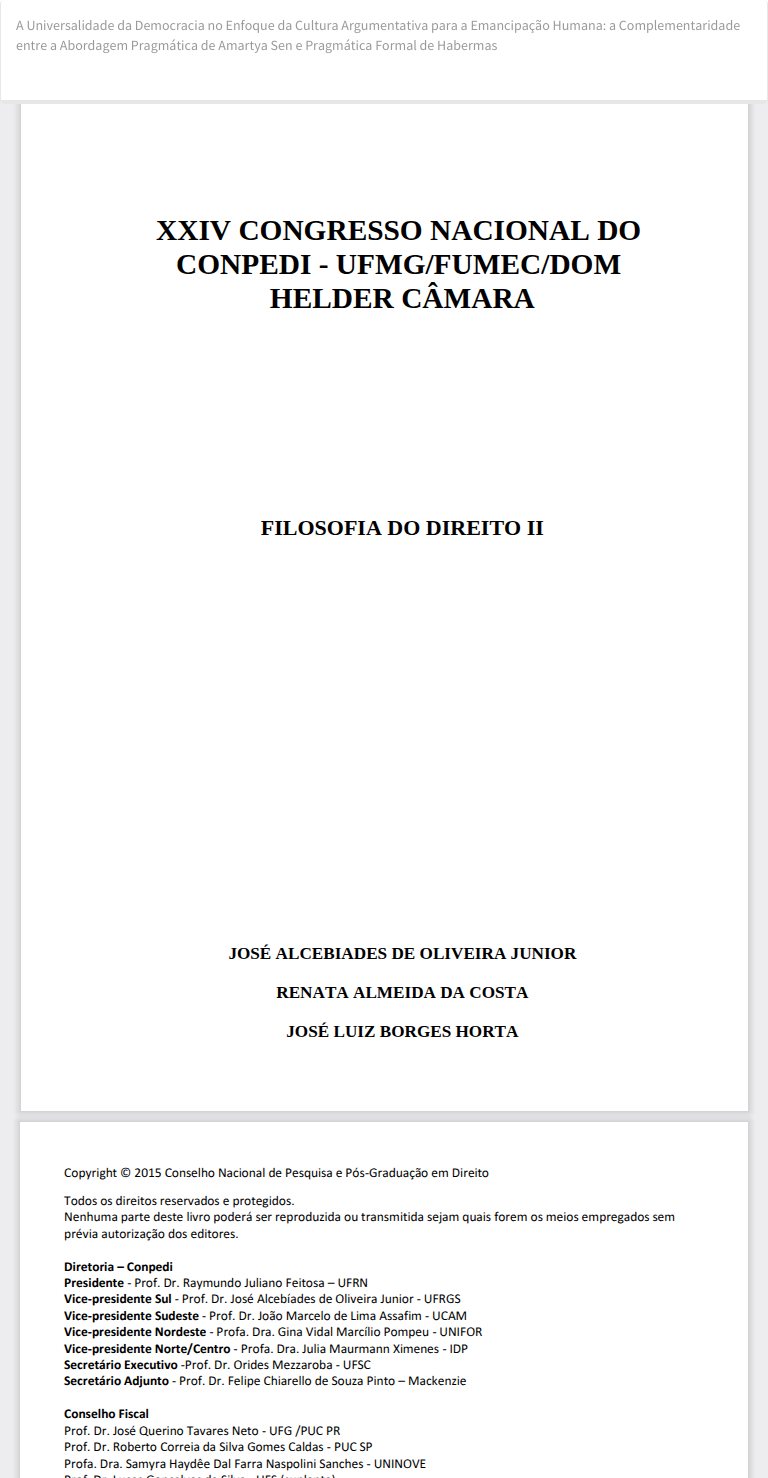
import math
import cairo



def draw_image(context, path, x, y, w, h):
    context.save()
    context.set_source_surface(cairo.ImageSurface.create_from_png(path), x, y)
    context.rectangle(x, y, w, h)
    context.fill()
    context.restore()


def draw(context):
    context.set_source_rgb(1, 1, 1)
    context.paint()
    draw_image(context, "images/1.png", 0, 100, 768, 1378)
    context.set_source_rgb(231 / 255, 231 / 255, 231 / 255)
    context.set_fill_rule(cairo.FillRule.EVEN_ODD)
    context.new_path()
    context.move_to(4, 0)
    context.line_to(764, 0)
    context.curve_to(766, 0, 768, 2, 768, 4)
    context.line_to(768, 100)
    context.curve_to(768, 102, 766, 104, 764, 104)
    context.line_to(4, 104)
    context.curve_to(2, 104, 0, 102, 0, 100)
    context.line_to(0, 4)
    context.curve_to(0, 2, 2, 0, 4, 0)
    context.close_path()
    context.move_to(4, 0)
    context.line_to(764, 0)
    context.curve_to(766, 0, 767, 2, 767, 4)
    context.line_to(767, 100)
    context.line_to(1, 100)
    context.line_to(1, 4)
    context.curve_to(1, 2, 2, 0, 4, 0)
    context.close_path()
    context.fill()
    context.select_font_face("Source Sans Pro")
    context.set_font_size(14)
    context.set_source_rgb(153 / 255, 153 / 255, 153 / 255)
    context.move_to(16, 30)
    context.show_text("A Universalidade da Democracia no Enfoque da Cultura Argumentativa para a Emancipação Humana: a Complementaridade")
    context.move_to(16, 50)
    context.show_text("entre a Abordagem Pragmática de Amartya Sen e Pragmática Formal de Habermas")


surface = cairo.ImageSurface(cairo.Format.RGB24, 768, 1478)
context = cairo.Context(surface)
options = cairo.FontOptions()
options.set_hint_metrics(cairo.HintMetrics.OFF)
options.set_hint_style(cairo.HintStyle.NONE)
context.set_font_options(options)
context.set_miter_limit(4)
draw(context)
surface.write_to_png("out.png")
